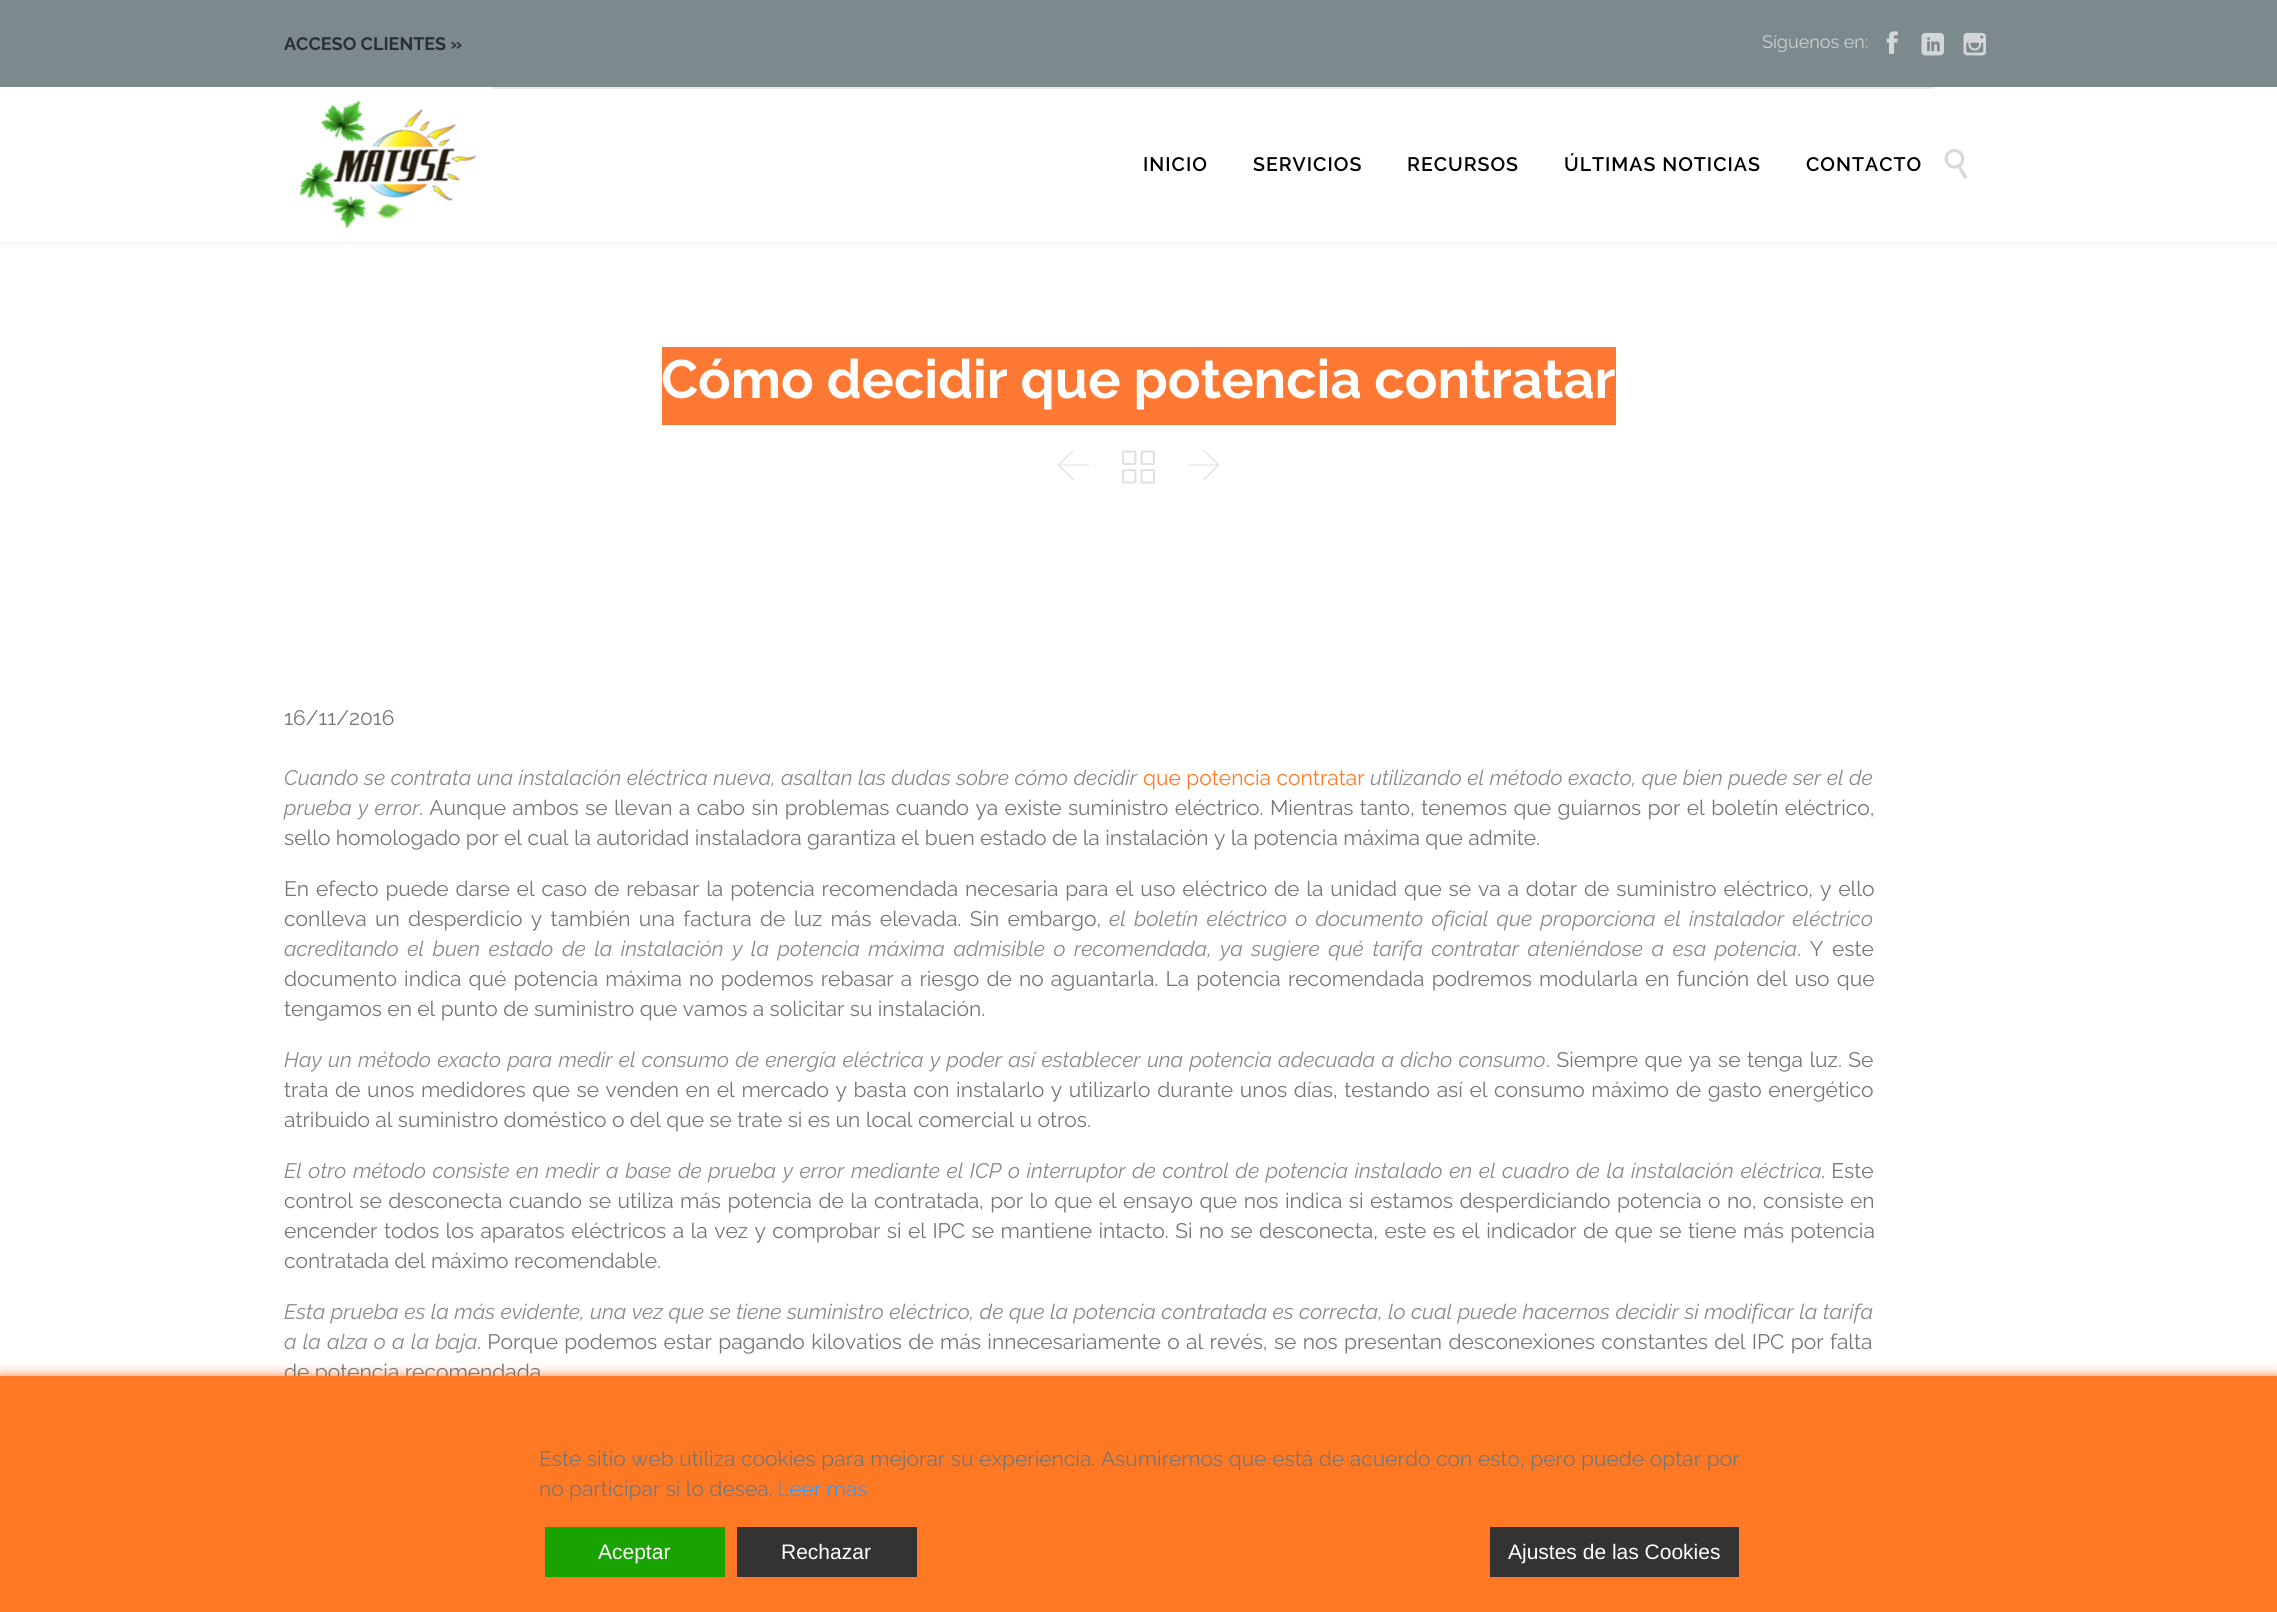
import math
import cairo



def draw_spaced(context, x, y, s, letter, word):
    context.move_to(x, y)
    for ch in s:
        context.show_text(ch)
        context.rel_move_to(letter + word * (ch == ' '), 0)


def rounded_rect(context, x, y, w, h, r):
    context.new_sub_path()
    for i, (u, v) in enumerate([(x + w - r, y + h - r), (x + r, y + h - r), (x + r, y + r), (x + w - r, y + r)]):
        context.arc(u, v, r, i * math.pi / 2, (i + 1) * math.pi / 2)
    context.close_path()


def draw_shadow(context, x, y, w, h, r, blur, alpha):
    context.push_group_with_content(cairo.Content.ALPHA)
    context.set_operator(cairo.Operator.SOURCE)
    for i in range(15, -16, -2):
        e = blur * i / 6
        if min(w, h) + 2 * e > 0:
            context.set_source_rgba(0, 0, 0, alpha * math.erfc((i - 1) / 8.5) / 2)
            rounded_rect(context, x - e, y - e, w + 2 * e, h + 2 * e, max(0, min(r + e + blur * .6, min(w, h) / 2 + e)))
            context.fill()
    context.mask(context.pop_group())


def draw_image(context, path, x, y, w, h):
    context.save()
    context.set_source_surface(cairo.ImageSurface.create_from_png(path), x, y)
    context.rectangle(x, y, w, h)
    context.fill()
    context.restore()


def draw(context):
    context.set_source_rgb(1, 1, 1)
    context.paint()
    context.set_source_rgb(0, 0, 0)
    draw_shadow(context, 0, 3, 2277, 242, 0, 1.5, 0.04)
    context.set_source_rgb(1, 1, 1)
    context.rectangle(0, 87, 2277, 155)
    context.fill()
    context.set_source_rgb(124 / 255, 138 / 255, 141 / 255)
    context.rectangle(0, 0, 2277, 87)
    context.fill()
    draw_image(context, "images/1.png", 1886, 31, 12, 23)
    draw_image(context, "images/2.png", 1921, 32, 23, 24)
    draw_image(context, "images/3.png", 1963, 32, 23, 24)
    draw_image(context, "images/4.png", 298, 100, 178, 129)
    context.set_source_rgb(234 / 255, 234 / 255, 235 / 255)
    context.rectangle(492, 87, 1442, 2)
    context.fill()
    draw_image(context, "images/5.png", 1944, 148, 24, 31)
    context.set_source_rgb(253 / 255, 120 / 255, 50 / 255)
    context.rectangle(662, 347, 954, 78)
    context.fill()
    context.set_source_rgb(224 / 255, 224 / 255, 224 / 255)
    context.new_path()
    context.move_to(1058.5, 464)
    context.line_to(1073, 450)
    context.line_to(1074, 450.5)
    context.line_to(1060, 464.5)
    context.line_to(1089, 464.5)
    context.line_to(1089, 465.5)
    context.line_to(1060, 465.5)
    context.line_to(1074, 479.5)
    context.line_to(1073, 480.5)
    context.line_to(1057.5, 465)
    context.close_path()
    context.fill()
    draw_image(context, "images/6.png", 1122, 450, 33, 34)
    context.new_path()
    context.move_to(1218.5, 466)
    context.line_to(1204, 480.5)
    context.line_to(1203, 479.5)
    context.line_to(1217, 465.5)
    context.line_to(1188, 465.5)
    context.line_to(1188, 464.5)
    context.line_to(1217, 464.5)
    context.line_to(1203, 450.5)
    context.line_to(1204, 450)
    context.line_to(1219.5, 465)
    context.close_path()
    context.fill()
    context.set_source_rgb(1, 121 / 255, 37 / 255)
    draw_shadow(context, 0, 1376, 2277, 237, 0, 6, 1)
    context.select_font_face("Raleway", cairo.FontSlant.NORMAL, cairo.FontWeight.BOLD)
    context.set_font_size(18)
    context.set_source_rgb(43 / 255, 47 / 255, 52 / 255)
    context.move_to(284, 50)
    context.show_text("ACCESO CLIENTES »")
    context.select_font_face("Raleway")
    context.set_source_rgb(204 / 255, 208 / 255, 208 / 255)
    context.move_to(1762, 48)
    context.show_text("Síguenos en:")
    context.select_font_face("Raleway SemiBold")
    context.set_font_size(19.5)
    context.set_source_rgb(0, 0, 0)
    draw_spaced(context, 1143, 171, "INICIO", 1, 0)
    draw_spaced(context, 1253, 171, "SERVICIOS", 1, 0)
    draw_spaced(context, 1407, 171, "RECURSOS", 1, 0)
    draw_spaced(context, 1564, 171, "ÚLTIMAS NOTICIAS", 1, 0)
    draw_spaced(context, 1806, 171, "CONTACTO", 1, 0)
    context.select_font_face("Raleway", cairo.FontSlant.NORMAL, cairo.FontWeight.BOLD)
    context.set_font_size(54)
    context.set_source_rgb(1, 1, 1)
    context.move_to(661, 398)
    context.show_text("Cómo decidir que potencia contratar")
    context.select_font_face("Raleway")
    context.set_font_size(21)
    context.set_source_rgb(118 / 255, 118 / 255, 118 / 255)
    context.move_to(284, 725)
    context.show_text("16/11/2016")
    context.select_font_face("Raleway Thin", cairo.FontSlant.ITALIC)
    context.set_source_rgb(137 / 255, 137 / 255, 137 / 255)
    draw_spaced(context, 284, 785, "Cuando se contrata una instalación eléctrica nueva, asaltan las dudas sobre cómo decidir", 0, 0.25)
    context.select_font_face("Raleway")
    context.set_source_rgb(1, 121 / 255, 37 / 255)
    draw_spaced(context, 1143, 785, "que potencia contratar", 0, 0.25)
    context.select_font_face("Raleway Thin", cairo.FontSlant.ITALIC)
    context.set_source_rgb(137 / 255, 137 / 255, 137 / 255)
    draw_spaced(context, 1370, 785, "utilizando el método exacto, que bien puede ser el de", 0, 0.25)
    draw_spaced(context, 284, 815, "prueba y error", 0, 1)
    context.select_font_face("Raleway")
    context.set_source_rgb(118 / 255, 118 / 255, 118 / 255)
    draw_spaced(context, 419, 815, ". Aunque ambos se llevan a cabo sin problemas cuando ya existe suministro eléctrico. Mientras tanto, tenemos que guiarnos por el boletín eléctrico,", 0, 1)
    context.move_to(284, 845)
    context.show_text("sello homologado por el cual la autoridad instaladora garantiza el buen estado de la instalación y la potencia máxima que admite.")
    draw_spaced(context, 284, 896, "En efecto puede darse el caso de rebasar la potencia recomendada necesaria para el uso eléctrico de la unidad que se va a dotar de suministro eléctrico, y ello", 0, 1.5)
    draw_spaced(context, 284, 926, "conlleva un desperdicio y también una factura de luz más elevada. Sin embargo,", 0, 3)
    context.select_font_face("Raleway Thin", cairo.FontSlant.ITALIC)
    context.set_source_rgb(137 / 255, 137 / 255, 137 / 255)
    draw_spaced(context, 1109, 926, "el boletín eléctrico o documento oficial que proporciona el instalador eléctrico", 0, 3)
    draw_spaced(context, 284, 956, "acreditando el buen estado de la instalación y la potencia máxima admisible o recomendada, ya sugiere qué tarifa contratar ateniéndose a esa potencia", 0, 3.3)
    context.select_font_face("Raleway")
    context.set_source_rgb(118 / 255, 118 / 255, 118 / 255)
    draw_spaced(context, 1797, 956, ". Y este", 0, 3.3)
    draw_spaced(context, 284, 986, "documento indica qué potencia máxima no podemos rebasar a riesgo de no aguantarla. La potencia recomendada podremos modularla en función del uso que", 0, 1.75)
    context.move_to(284, 1016)
    context.show_text("tengamos en el punto de suministro que vamos a solicitar su instalación.")
    context.select_font_face("Raleway Thin", cairo.FontSlant.ITALIC)
    context.set_source_rgb(137 / 255, 137 / 255, 137 / 255)
    draw_spaced(context, 284, 1067, "Hay un método exacto para medir el consumo de energía eléctrica y poder así establecer una potencia adecuada a dicho consumo", 0, 1.1)
    context.select_font_face("Raleway")
    context.set_source_rgb(118 / 255, 118 / 255, 118 / 255)
    draw_spaced(context, 1546, 1067, ". Siempre que ya se tenga luz. Se", 0, 1.1)
    draw_spaced(context, 284, 1097, "trata de unos medidores que se venden en el mercado y basta con instalarlo y utilizarlo durante unos días, testando así el consumo máximo de gasto energético", 0, 1.25)
    context.move_to(284, 1127)
    context.show_text("atribuido al suministro doméstico o del que se trate si es un local comercial u otros.")
    context.select_font_face("Raleway Thin", cairo.FontSlant.ITALIC)
    context.set_source_rgb(137 / 255, 137 / 255, 137 / 255)
    draw_spaced(context, 284, 1178, "El otro método consiste en medir a base de prueba y error mediante el ICP o interruptor de control de potencia instalado en el cuadro de la instalación eléctrica", 0, 1.35)
    context.select_font_face("Raleway")
    context.set_source_rgb(118 / 255, 118 / 255, 118 / 255)
    draw_spaced(context, 1821, 1178, ". Este", 0, 1)
    draw_spaced(context, 284, 1208, "control se desconecta cuando se utiliza más potencia de la contratada, por lo que el ensayo que nos indica si estamos desperdiciando potencia o no, consiste en", 0, 1.1)
    draw_spaced(context, 284, 1238, "encender todos los aparatos eléctricos a la vez y comprobar si el IPC se mantiene intacto. Si no se desconecta, este es el indicador de que se tiene más potencia", 0, 1.1)
    context.move_to(284, 1268)
    context.show_text("contratada del máximo recomendable.")
    context.select_font_face("Raleway Thin", cairo.FontSlant.ITALIC)
    context.set_source_rgb(137 / 255, 137 / 255, 137 / 255)
    draw_spaced(context, 284, 1319, "Esta prueba es la más evidente, una vez que se tiene suministro eléctrico, de que la potencia contratada es correcta, lo cual puede hacernos decidir si modificar la tarifa", 0, 0.25)
    draw_spaced(context, 284, 1349, "a la alza o a la baja", 0, 1)
    context.select_font_face("Raleway")
    context.set_source_rgb(118 / 255, 118 / 255, 118 / 255)
    draw_spaced(context, 477, 1349, ". Porque podemos estar pagando kilovatios de más innecesariamente o al revés, se nos presentan desconexiones constantes del IPC por falta", 0, 1)
    context.move_to(284, 1379)
    context.show_text("de potencia recomendada")
    context.set_source_rgb(1, 121 / 255, 37 / 255)
    context.rectangle(0, 1376, 2277, 236)
    context.fill()
    context.set_source_rgb(118 / 255, 118 / 255, 118 / 255)
    draw_spaced(context, 539, 1466, "Este sitio web utiliza cookies para mejorar su experiencia. Asumiremos que está de acuerdo con esto, pero puede optar por", 0, 0.25)
    context.move_to(539, 1496)
    context.show_text("no participar si lo desea.")
    context.set_source_rgb(53 / 255, 155 / 255, 245 / 255)
    context.move_to(777, 1496)
    context.show_text("Leer más")
    context.set_source_rgb(24 / 255, 163 / 255, 0)
    context.rectangle(545, 1527, 180, 50)
    context.fill()
    context.select_font_face("Liberation Sans")
    context.set_source_rgb(1, 1, 1)
    context.move_to(598, 1559)
    context.show_text("Aceptar")
    context.set_source_rgb(51 / 255, 51 / 255, 51 / 255)
    context.rectangle(737, 1527, 180, 50)
    context.fill()
    context.set_source_rgb(1, 1, 1)
    context.move_to(781, 1559)
    context.show_text("Rechazar")
    context.set_source_rgb(51 / 255, 51 / 255, 51 / 255)
    context.rectangle(1490, 1527, 249, 50)
    context.fill()
    context.set_source_rgb(1, 1, 1)
    context.move_to(1508, 1559)
    context.show_text("Ajustes de las Cookies")


surface = cairo.ImageSurface(cairo.Format.RGB24, 2277, 1612)
context = cairo.Context(surface)
options = cairo.FontOptions()
options.set_hint_metrics(cairo.HintMetrics.OFF)
options.set_hint_style(cairo.HintStyle.NONE)
context.set_font_options(options)
context.set_miter_limit(4)
draw(context)
surface.write_to_png("out.png")
